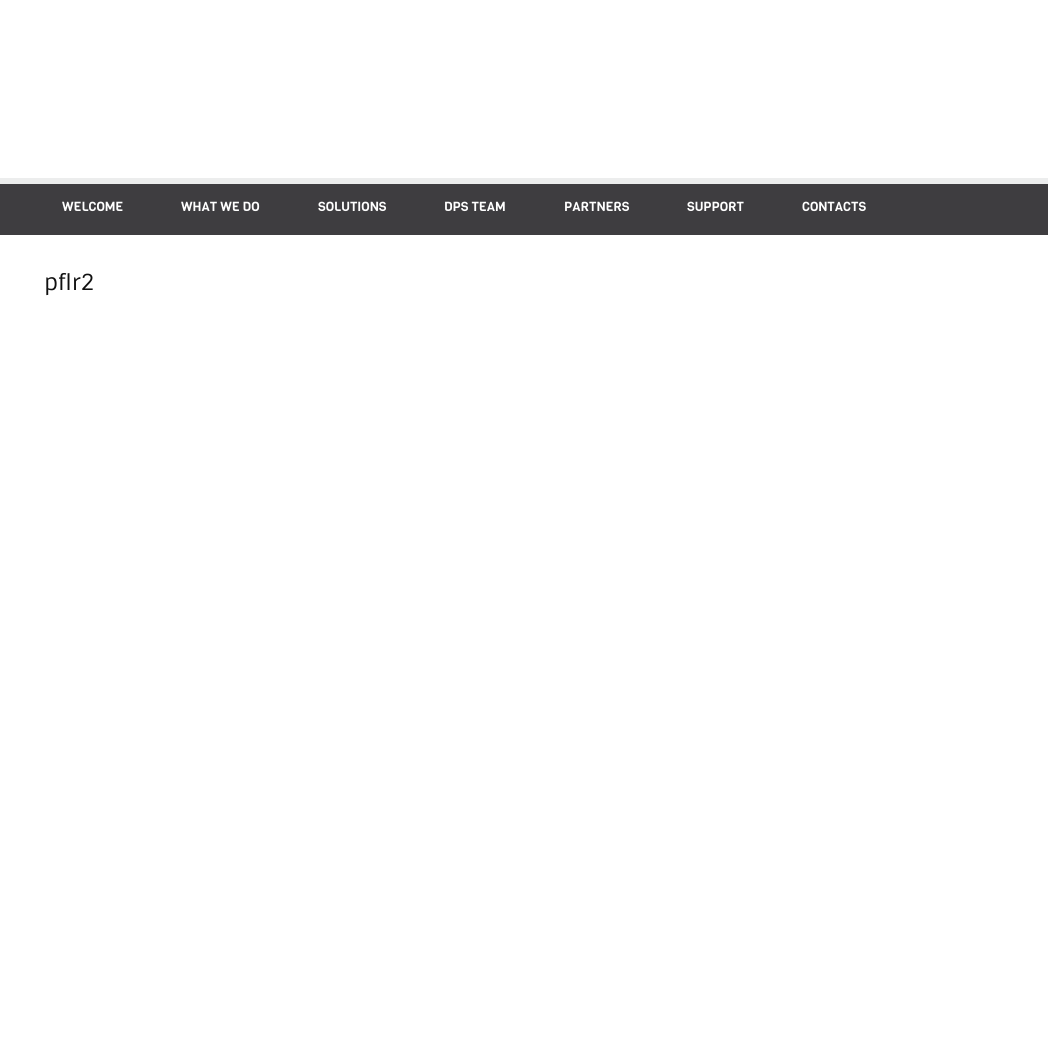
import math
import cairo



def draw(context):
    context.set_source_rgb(1, 1, 1)
    context.paint()
    context.set_source_rgb(236 / 255, 237 / 255, 237 / 255)
    context.rectangle(0, 178, 1048, 6)
    context.fill()
    context.set_source_rgb(62 / 255, 61 / 255, 64 / 255)
    context.rectangle(0, 184, 1048, 51)
    context.fill()
    context.select_font_face("Viga")
    context.set_font_size(13)
    context.set_source_rgb(1, 1, 1)
    context.move_to(62, 211)
    context.show_text("WELCOME")
    context.move_to(181, 211)
    context.show_text("WHAT WE DO")
    context.move_to(318, 211)
    context.show_text("SOLUTIONS")
    context.move_to(444, 211)
    context.show_text("DPS TEAM")
    context.move_to(564, 211)
    context.show_text("PARTNERS")
    context.move_to(687, 211)
    context.show_text("SUPPORT")
    context.move_to(802, 211)
    context.show_text("CONTACTS")
    context.select_font_face("Sintony")
    context.set_font_size(22)
    context.set_source_rgb(17 / 255, 17 / 255, 17 / 255)
    context.move_to(44, 290)
    context.show_text("pflr2")


surface = cairo.ImageSurface(cairo.Format.RGB24, 1048, 1051)
context = cairo.Context(surface)
options = cairo.FontOptions()
options.set_hint_metrics(cairo.HintMetrics.OFF)
options.set_hint_style(cairo.HintStyle.NONE)
context.set_font_options(options)
context.set_miter_limit(4)
draw(context)
surface.write_to_png("out.png")
